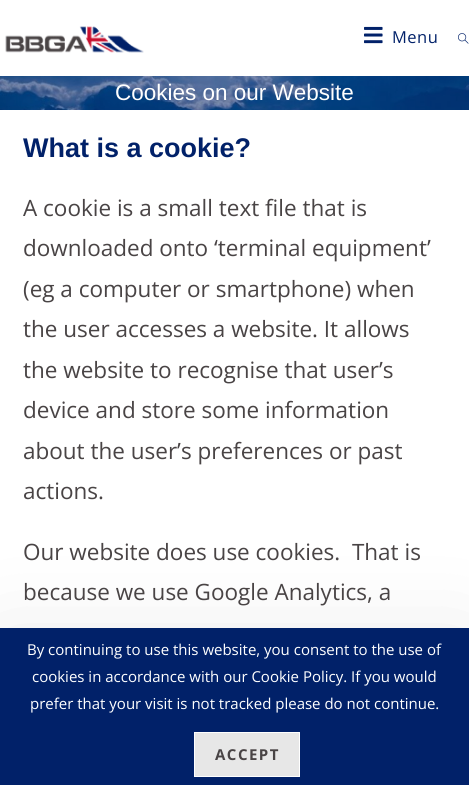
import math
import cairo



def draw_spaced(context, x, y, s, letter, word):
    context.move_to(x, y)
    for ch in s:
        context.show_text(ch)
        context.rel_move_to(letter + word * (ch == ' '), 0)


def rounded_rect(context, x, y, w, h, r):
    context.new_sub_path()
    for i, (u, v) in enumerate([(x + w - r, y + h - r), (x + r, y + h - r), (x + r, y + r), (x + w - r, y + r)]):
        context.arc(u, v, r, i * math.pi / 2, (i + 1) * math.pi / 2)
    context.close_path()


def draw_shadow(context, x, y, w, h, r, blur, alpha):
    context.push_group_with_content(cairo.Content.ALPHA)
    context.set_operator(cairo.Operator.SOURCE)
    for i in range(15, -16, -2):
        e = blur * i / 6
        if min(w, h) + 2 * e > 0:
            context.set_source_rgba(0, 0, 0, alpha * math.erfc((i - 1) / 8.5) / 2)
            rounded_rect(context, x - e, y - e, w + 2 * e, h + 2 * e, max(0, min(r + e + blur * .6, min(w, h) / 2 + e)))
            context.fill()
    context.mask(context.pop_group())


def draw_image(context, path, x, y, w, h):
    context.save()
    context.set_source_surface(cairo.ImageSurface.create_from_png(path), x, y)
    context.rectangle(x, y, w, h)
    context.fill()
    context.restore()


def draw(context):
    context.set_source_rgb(1, 1, 1)
    context.paint()
    draw_image(context, "images/1.png", 5, 26, 139, 27)
    draw_image(context, "images/2.png", 364, 26, 19, 18)
    draw_image(context, "images/3.png", 458, 33, 11, 11)
    draw_image(context, "images/4.png", 0, 76, 469, 34)
    context.set_source_rgb(0, 0, 0)
    draw_shadow(context, 0, 648, 469, 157, 0, 50, 0.1)
    context.set_source_rgb(1 / 255, 33 / 255, 105 / 255)
    context.rectangle(0, 628, 469, 157)
    context.fill()
    context.set_source_rgb(231 / 255, 231 / 255, 231 / 255)
    context.rectangle(194.5, 732.5, 105, 44)
    context.fill_preserve()
    context.set_source_rgb(1, 1, 1)
    context.set_line_width(1)
    context.stroke()
    context.select_font_face("Open Sans")
    context.set_font_size(16.5)
    context.set_source_rgb(1 / 255, 33 / 255, 105 / 255)
    draw_spaced(context, 392, 43, "Menu", 0.5, 0)
    context.select_font_face("Liberation Sans")
    context.set_font_size(22.5)
    context.set_source_rgb(1, 1, 1)
    context.move_to(115, 100)
    context.show_text("Cookies on our Website")
    context.select_font_face("Liberation Sans", cairo.FontSlant.NORMAL, cairo.FontWeight.BOLD)
    context.set_font_size(27)
    context.set_source_rgb(1 / 255, 33 / 255, 105 / 255)
    context.move_to(23, 157)
    context.show_text("What is a cookie?")
    context.select_font_face("Open Sans")
    context.set_font_size(22.5)
    context.set_source_rgb(73 / 255, 68 / 255, 69 / 255)
    context.move_to(23, 216)
    context.show_text("A cookie is a small text file that is")
    context.move_to(23, 256)
    context.show_text("downloaded onto ‘terminal equipment’")
    context.move_to(23, 297)
    context.show_text("(eg a computer or smartphone) when")
    context.move_to(23, 337)
    context.show_text("the user accesses a website. It allows")
    context.move_to(23, 378)
    context.show_text("the website to recognise that user’s")
    context.move_to(23, 418)
    context.show_text("device and store some information")
    context.move_to(23, 459)
    context.show_text("about the user’s preferences or past")
    context.move_to(23, 499)
    context.show_text("actions.")
    context.move_to(23, 560)
    context.show_text("Our website does use cookies.  That is")
    context.move_to(23, 600)
    context.show_text("because we use Google Analytics, a")
    context.set_font_size(15)
    context.set_source_rgb(1, 1, 1)
    context.move_to(27, 655)
    context.show_text("By continuing to use this website, you consent to the use of")
    context.move_to(32, 682)
    context.show_text("cookies in accordance with our Cookie Policy. If you would")
    context.move_to(30, 709)
    context.show_text("prefer that your visit is not tracked please do not continue.")
    context.select_font_face("Open Sans", cairo.FontSlant.NORMAL, cairo.FontWeight.BOLD)
    context.set_source_rgb(73 / 255, 68 / 255, 69 / 255)
    draw_spaced(context, 215, 760, "ACCEPT", 1.5, 0)


surface = cairo.ImageSurface(cairo.Format.RGB24, 469, 785)
context = cairo.Context(surface)
options = cairo.FontOptions()
options.set_hint_metrics(cairo.HintMetrics.OFF)
options.set_hint_style(cairo.HintStyle.NONE)
context.set_font_options(options)
context.set_miter_limit(4)
draw(context)
surface.write_to_png("out.png")
